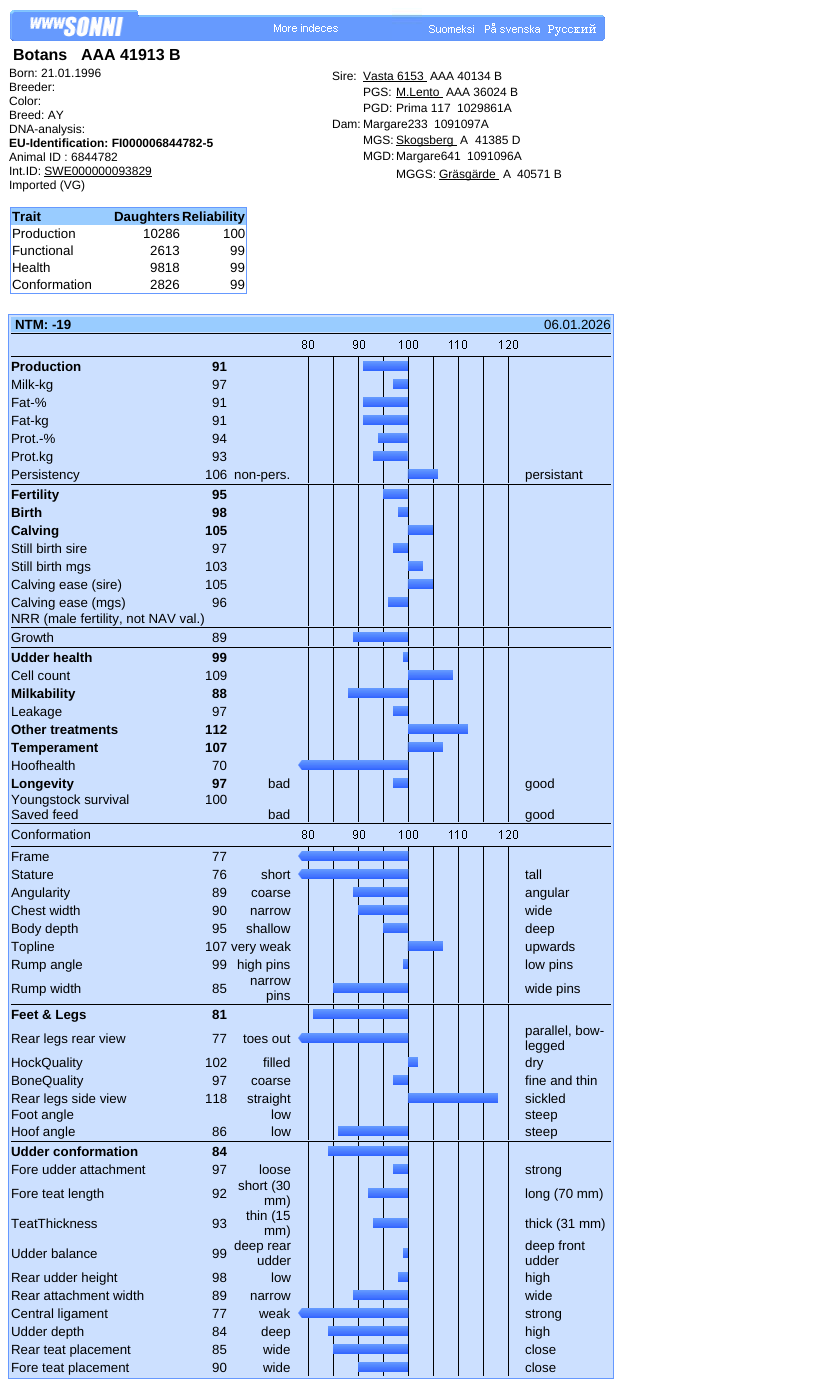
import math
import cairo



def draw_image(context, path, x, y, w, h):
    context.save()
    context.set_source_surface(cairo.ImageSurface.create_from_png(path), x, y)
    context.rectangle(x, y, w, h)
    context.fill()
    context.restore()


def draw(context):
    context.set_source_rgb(1, 1, 1)
    context.paint()
    draw_image(context, "images/1.png", 10, 11, 2, 29)
    draw_image(context, "images/2.png", 12, 10, 1, 31)
    draw_image(context, "images/3.png", 13, 10, 124, 31)
    draw_image(context, "images/4.png", 137, 11, 85, 30)
    draw_image(context, "images/5.png", 222, 15, 170, 26)
    draw_image(context, "images/6.png", 392, 8, 30, 33)
    draw_image(context, "images/7.png", 422, 15, 60, 26)
    draw_image(context, "images/8.png", 482, 15, 60, 26)
    draw_image(context, "images/9.png", 542, 15, 60, 26)
    draw_image(context, "images/10.png", 602, 15, 3, 26)
    context.set_source_rgb(0, 0, 0)
    context.rectangle(44, 176, 108, 1)
    context.fill()
    context.set_source_rgb(102 / 255, 153 / 255, 1)
    context.rectangle(10, 207, 237, 87)
    context.fill()
    context.set_source_rgb(1, 1, 1)
    context.rectangle(11, 225, 235, 68)
    context.fill()
    context.set_source_rgb(153 / 255, 204 / 255, 1)
    context.rectangle(11, 208, 235, 17)
    context.fill()
    context.set_source_rgb(0, 0, 0)
    context.rectangle(363, 81, 64, 1)
    context.fill()
    context.rectangle(396, 97, 47, 1)
    context.fill()
    context.rectangle(396, 145, 61, 1)
    context.fill()
    context.rectangle(439, 179, 60, 1)
    context.fill()
    context.set_source_rgb(102 / 255, 153 / 255, 1)
    context.rectangle(8, 314, 606, 1065)
    context.fill()
    context.set_source_rgb(204 / 255, 224 / 255, 1)
    context.rectangle(9, 315, 604, 1063)
    context.fill()
    context.set_source_rgb(153 / 255, 204 / 255, 1)
    context.rectangle(11, 317, 600, 15)
    context.fill()
    context.set_source_rgb(0, 0, 0)
    context.rectangle(11, 333, 600, 1)
    context.fill()
    draw_image(context, "images/11.png", 302, 340, 216, 9)
    context.rectangle(11, 356, 600, 1)
    context.fill()
    draw_image(context, "images/12.png", 308, 357, 201, 18)
    draw_image(context, "images/13.png", 363, 361, 45, 10)
    draw_image(context, "images/12.png", 308, 375, 201, 18)
    draw_image(context, "images/14.png", 393, 379, 15, 10)
    draw_image(context, "images/12.png", 308, 393, 201, 18)
    draw_image(context, "images/13.png", 363, 397, 45, 10)
    draw_image(context, "images/12.png", 308, 411, 201, 18)
    draw_image(context, "images/13.png", 363, 415, 45, 10)
    draw_image(context, "images/12.png", 308, 429, 201, 18)
    draw_image(context, "images/15.png", 378, 433, 31, 10)
    draw_image(context, "images/12.png", 308, 447, 201, 18)
    draw_image(context, "images/16.png", 373, 451, 36, 10)
    draw_image(context, "images/12.png", 308, 465, 201, 18)
    draw_image(context, "images/17.png", 407, 469, 31, 10)
    context.rectangle(11, 484, 600, 1)
    context.fill()
    draw_image(context, "images/12.png", 308, 485, 201, 18)
    draw_image(context, "images/18.png", 383, 489, 26, 10)
    draw_image(context, "images/12.png", 308, 503, 201, 18)
    draw_image(context, "images/19.png", 398, 507, 10, 10)
    draw_image(context, "images/12.png", 308, 521, 201, 18)
    draw_image(context, "images/20.png", 407, 525, 26, 10)
    draw_image(context, "images/12.png", 308, 539, 201, 18)
    draw_image(context, "images/14.png", 393, 543, 15, 10)
    draw_image(context, "images/12.png", 308, 557, 201, 18)
    draw_image(context, "images/14.png", 408, 561, 15, 10)
    draw_image(context, "images/12.png", 308, 575, 201, 18)
    draw_image(context, "images/20.png", 407, 579, 26, 10)
    draw_image(context, "images/12.png", 308, 593, 201, 18)
    draw_image(context, "images/21.png", 388, 597, 21, 10)
    draw_image(context, "images/22.png", 308, 611, 201, 15)
    context.rectangle(11, 627, 600, 1)
    context.fill()
    draw_image(context, "images/12.png", 308, 628, 201, 18)
    draw_image(context, "images/23.png", 353, 632, 55, 10)
    context.rectangle(11, 647, 600, 1)
    context.fill()
    draw_image(context, "images/12.png", 308, 648, 201, 18)
    draw_image(context, "images/24.png", 403, 652, 5, 10)
    draw_image(context, "images/12.png", 308, 666, 201, 18)
    draw_image(context, "images/13.png", 408, 670, 45, 10)
    draw_image(context, "images/12.png", 308, 684, 201, 18)
    draw_image(context, "images/25.png", 348, 688, 60, 10)
    draw_image(context, "images/12.png", 308, 702, 201, 18)
    draw_image(context, "images/14.png", 393, 706, 15, 10)
    draw_image(context, "images/12.png", 308, 720, 201, 18)
    draw_image(context, "images/25.png", 408, 724, 60, 10)
    draw_image(context, "images/12.png", 308, 738, 201, 18)
    draw_image(context, "images/26.png", 407, 742, 36, 10)
    draw_image(context, "images/12.png", 308, 756, 201, 18)
    draw_image(context, "images/27.png", 298, 760, 111, 10)
    draw_image(context, "images/12.png", 308, 774, 201, 18)
    draw_image(context, "images/14.png", 393, 778, 15, 10)
    draw_image(context, "images/22.png", 308, 792, 201, 15)
    draw_image(context, "images/22.png", 308, 807, 201, 15)
    context.rectangle(11, 823, 600, 1)
    context.fill()
    draw_image(context, "images/11.png", 302, 830, 216, 9)
    context.rectangle(11, 846, 600, 1)
    context.fill()
    draw_image(context, "images/12.png", 308, 847, 201, 18)
    draw_image(context, "images/27.png", 298, 851, 111, 10)
    draw_image(context, "images/12.png", 308, 865, 201, 18)
    draw_image(context, "images/27.png", 298, 869, 111, 10)
    draw_image(context, "images/12.png", 308, 883, 201, 18)
    draw_image(context, "images/23.png", 353, 887, 55, 10)
    draw_image(context, "images/12.png", 308, 901, 201, 18)
    draw_image(context, "images/28.png", 358, 905, 50, 10)
    draw_image(context, "images/12.png", 308, 919, 201, 18)
    draw_image(context, "images/18.png", 383, 923, 26, 10)
    draw_image(context, "images/12.png", 308, 937, 201, 18)
    draw_image(context, "images/26.png", 407, 941, 36, 10)
    draw_image(context, "images/12.png", 308, 955, 201, 18)
    draw_image(context, "images/24.png", 403, 959, 5, 10)
    draw_image(context, "images/29.png", 308, 973, 201, 30)
    draw_image(context, "images/30.png", 333, 983, 75, 10)
    context.rectangle(11, 1004, 600, 1)
    context.fill()
    draw_image(context, "images/12.png", 308, 1005, 201, 18)
    draw_image(context, "images/31.png", 313, 1009, 96, 10)
    draw_image(context, "images/29.png", 308, 1023, 201, 30)
    draw_image(context, "images/27.png", 298, 1033, 111, 10)
    draw_image(context, "images/12.png", 308, 1053, 201, 18)
    draw_image(context, "images/19.png", 408, 1057, 10, 10)
    draw_image(context, "images/12.png", 308, 1071, 201, 18)
    draw_image(context, "images/14.png", 393, 1075, 15, 10)
    draw_image(context, "images/12.png", 308, 1089, 201, 18)
    draw_image(context, "images/32.png", 407, 1093, 91, 10)
    draw_image(context, "images/22.png", 308, 1107, 201, 15)
    draw_image(context, "images/12.png", 308, 1122, 201, 18)
    draw_image(context, "images/33.png", 338, 1126, 70, 10)
    context.rectangle(11, 1141, 600, 1)
    context.fill()
    draw_image(context, "images/12.png", 308, 1142, 201, 18)
    draw_image(context, "images/34.png", 328, 1146, 81, 10)
    draw_image(context, "images/12.png", 308, 1160, 201, 18)
    draw_image(context, "images/14.png", 393, 1164, 15, 10)
    draw_image(context, "images/29.png", 308, 1178, 201, 30)
    draw_image(context, "images/35.png", 368, 1188, 40, 10)
    draw_image(context, "images/29.png", 308, 1208, 201, 30)
    draw_image(context, "images/16.png", 373, 1218, 36, 10)
    draw_image(context, "images/29.png", 308, 1238, 201, 30)
    draw_image(context, "images/24.png", 403, 1248, 5, 10)
    draw_image(context, "images/12.png", 308, 1268, 201, 18)
    draw_image(context, "images/19.png", 398, 1272, 10, 10)
    draw_image(context, "images/12.png", 308, 1286, 201, 18)
    draw_image(context, "images/23.png", 353, 1290, 55, 10)
    draw_image(context, "images/12.png", 308, 1304, 201, 18)
    draw_image(context, "images/27.png", 298, 1308, 111, 10)
    draw_image(context, "images/12.png", 308, 1322, 201, 18)
    draw_image(context, "images/34.png", 328, 1326, 81, 10)
    draw_image(context, "images/12.png", 308, 1340, 201, 18)
    draw_image(context, "images/30.png", 333, 1344, 75, 10)
    draw_image(context, "images/12.png", 308, 1358, 201, 18)
    draw_image(context, "images/28.png", 358, 1362, 50, 10)
    context.select_font_face("Liberation Sans", cairo.FontSlant.NORMAL, cairo.FontWeight.BOLD)
    context.set_font_size(16)
    context.move_to(13, 60)
    context.show_text("Botans")
    context.move_to(81, 60)
    context.show_text("AAA 41913 B")
    context.select_font_face("Liberation Sans")
    context.set_font_size(12)
    context.move_to(9, 77)
    context.show_text("Born: 21.01.1996")
    context.move_to(9, 91)
    context.show_text("Breeder:")
    context.move_to(9, 105)
    context.show_text("Color:")
    context.move_to(9, 119)
    context.show_text("Breed: AY")
    context.move_to(9, 133)
    context.show_text("DNA-analysis:")
    context.select_font_face("Liberation Sans", cairo.FontSlant.NORMAL, cairo.FontWeight.BOLD)
    context.move_to(9, 147)
    context.show_text("EU-Identification: FI000006844782-5")
    context.select_font_face("Liberation Sans")
    context.move_to(9, 161)
    context.show_text("Animal ID : 6844782")
    context.move_to(9, 175)
    context.show_text("Int.ID: SWE000000093829")
    context.move_to(9, 189)
    context.show_text("Imported (VG)")
    context.select_font_face("Liberation Sans", cairo.FontSlant.NORMAL, cairo.FontWeight.BOLD)
    context.set_font_size(13.3)
    context.move_to(12, 221)
    context.show_text("Trait")
    context.move_to(114, 221)
    context.show_text("Daughters")
    context.move_to(182, 221)
    context.show_text("Reliability")
    context.select_font_face("Liberation Sans")
    context.move_to(12, 238)
    context.show_text("Production")
    context.move_to(143, 238)
    context.show_text("10286")
    context.move_to(223, 238)
    context.show_text("100")
    context.move_to(12, 255)
    context.show_text("Functional")
    context.move_to(150, 255)
    context.show_text("2613")
    context.move_to(230, 255)
    context.show_text("99")
    context.move_to(12, 272)
    context.show_text("Health")
    context.move_to(150, 272)
    context.show_text("9818")
    context.move_to(230, 272)
    context.show_text("99")
    context.move_to(12, 289)
    context.show_text("Conformation")
    context.move_to(150, 289)
    context.show_text("2826")
    context.move_to(230, 289)
    context.show_text("99")
    context.set_font_size(12)
    context.move_to(332, 80)
    context.show_text("Sire:")
    context.move_to(363, 80)
    context.show_text("Vasta 6153")
    context.move_to(430, 80)
    context.show_text("AAA 40134 B")
    context.move_to(363, 96)
    context.show_text("PGS:")
    context.move_to(396, 96)
    context.show_text("M.Lento")
    context.move_to(446, 96)
    context.show_text("AAA 36024 B")
    context.move_to(363, 112)
    context.show_text("PGD:")
    context.move_to(396, 112)
    context.show_text("Prima 117")
    context.move_to(457, 112)
    context.show_text("1029861A")
    context.move_to(332, 128)
    context.show_text("Dam:")
    context.move_to(363, 128)
    context.show_text("Margare233")
    context.move_to(434, 128)
    context.show_text("1091097A")
    context.move_to(363, 144)
    context.show_text("MGS:")
    context.move_to(396, 144)
    context.show_text("Skogsberg")
    context.move_to(460, 144)
    context.show_text("A")
    context.move_to(475, 144)
    context.show_text("41385 D")
    context.move_to(363, 160)
    context.show_text("MGD:")
    context.move_to(396, 160)
    context.show_text("Margare641")
    context.move_to(467, 160)
    context.show_text("1091096A")
    context.move_to(396, 178)
    context.show_text("MGGS:")
    context.move_to(439, 178)
    context.show_text("Gräsgärde")
    context.move_to(503, 178)
    context.show_text("A")
    context.move_to(517, 178)
    context.show_text("40571 B")
    context.select_font_face("Liberation Sans", cairo.FontSlant.NORMAL, cairo.FontWeight.BOLD)
    context.set_font_size(13.3)
    context.move_to(15, 329)
    context.show_text("NTM: -19")
    context.select_font_face("Liberation Sans")
    context.move_to(544, 329)
    context.show_text("06.01.2026")
    context.select_font_face("Liberation Sans", cairo.FontSlant.NORMAL, cairo.FontWeight.BOLD)
    context.move_to(11, 371)
    context.show_text("Production")
    context.move_to(212, 371)
    context.show_text("91")
    context.select_font_face("Liberation Sans")
    context.move_to(11, 389)
    context.show_text("Milk-kg")
    context.move_to(212, 389)
    context.show_text("97")
    context.move_to(11, 407)
    context.show_text("Fat-%")
    context.move_to(212, 407)
    context.show_text("91")
    context.move_to(11, 425)
    context.show_text("Fat-kg")
    context.move_to(212, 425)
    context.show_text("91")
    context.move_to(11, 443)
    context.show_text("Prot.-%")
    context.move_to(212, 443)
    context.show_text("94")
    context.move_to(11, 461)
    context.show_text("Prot.kg")
    context.move_to(212, 461)
    context.show_text("93")
    context.move_to(11, 479)
    context.show_text("Persistency")
    context.move_to(205, 479)
    context.show_text("106")
    context.move_to(234, 479)
    context.show_text("non-pers.")
    context.move_to(525, 479)
    context.show_text("persistant")
    context.select_font_face("Liberation Sans", cairo.FontSlant.NORMAL, cairo.FontWeight.BOLD)
    context.move_to(11, 499)
    context.show_text("Fertility")
    context.move_to(212, 499)
    context.show_text("95")
    context.move_to(11, 517)
    context.show_text("Birth")
    context.move_to(212, 517)
    context.show_text("98")
    context.move_to(11, 535)
    context.show_text("Calving")
    context.move_to(205, 535)
    context.show_text("105")
    context.select_font_face("Liberation Sans")
    context.move_to(11, 553)
    context.show_text("Still birth sire")
    context.move_to(212, 553)
    context.show_text("97")
    context.move_to(11, 571)
    context.show_text("Still birth mgs")
    context.move_to(205, 571)
    context.show_text("103")
    context.move_to(11, 589)
    context.show_text("Calving ease (sire)")
    context.move_to(205, 589)
    context.show_text("105")
    context.move_to(11, 607)
    context.show_text("Calving ease (mgs)")
    context.move_to(212, 607)
    context.show_text("96")
    context.move_to(11, 623)
    context.show_text("NRR (male fertility, not NAV val.)")
    context.move_to(11, 642)
    context.show_text("Growth")
    context.move_to(212, 642)
    context.show_text("89")
    context.select_font_face("Liberation Sans", cairo.FontSlant.NORMAL, cairo.FontWeight.BOLD)
    context.move_to(11, 662)
    context.show_text("Udder health")
    context.move_to(212, 662)
    context.show_text("99")
    context.select_font_face("Liberation Sans")
    context.move_to(11, 680)
    context.show_text("Cell count")
    context.move_to(205, 680)
    context.show_text("109")
    context.select_font_face("Liberation Sans", cairo.FontSlant.NORMAL, cairo.FontWeight.BOLD)
    context.move_to(11, 698)
    context.show_text("Milkability")
    context.move_to(212, 698)
    context.show_text("88")
    context.select_font_face("Liberation Sans")
    context.move_to(11, 716)
    context.show_text("Leakage")
    context.move_to(212, 716)
    context.show_text("97")
    context.select_font_face("Liberation Sans", cairo.FontSlant.NORMAL, cairo.FontWeight.BOLD)
    context.move_to(11, 734)
    context.show_text("Other treatments")
    context.move_to(205, 734)
    context.show_text("112")
    context.move_to(11, 752)
    context.show_text("Temperament")
    context.move_to(205, 752)
    context.show_text("107")
    context.select_font_face("Liberation Sans")
    context.move_to(11, 770)
    context.show_text("Hoofhealth")
    context.move_to(212, 770)
    context.show_text("70")
    context.select_font_face("Liberation Sans", cairo.FontSlant.NORMAL, cairo.FontWeight.BOLD)
    context.move_to(11, 788)
    context.show_text("Longevity")
    context.move_to(212, 788)
    context.show_text("97")
    context.select_font_face("Liberation Sans")
    context.move_to(268, 788)
    context.show_text("bad")
    context.move_to(525, 788)
    context.show_text("good")
    context.move_to(11, 804)
    context.show_text("Youngstock survival")
    context.move_to(205, 804)
    context.show_text("100")
    context.move_to(11, 819)
    context.show_text("Saved feed")
    context.move_to(268, 819)
    context.show_text("bad")
    context.move_to(525, 819)
    context.show_text("good")
    context.move_to(11, 839)
    context.show_text("Conformation")
    context.move_to(11, 861)
    context.show_text("Frame")
    context.move_to(212, 861)
    context.show_text("77")
    context.move_to(11, 879)
    context.show_text("Stature")
    context.move_to(212, 879)
    context.show_text("76")
    context.move_to(261, 879)
    context.show_text("short")
    context.move_to(525, 879)
    context.show_text("tall")
    context.move_to(11, 897)
    context.show_text("Angularity")
    context.move_to(212, 897)
    context.show_text("89")
    context.move_to(251, 897)
    context.show_text("coarse")
    context.move_to(525, 897)
    context.show_text("angular")
    context.move_to(11, 915)
    context.show_text("Chest width")
    context.move_to(212, 915)
    context.show_text("90")
    context.move_to(250, 915)
    context.show_text("narrow")
    context.move_to(525, 915)
    context.show_text("wide")
    context.move_to(11, 933)
    context.show_text("Body depth")
    context.move_to(212, 933)
    context.show_text("95")
    context.move_to(246, 933)
    context.show_text("shallow")
    context.move_to(525, 933)
    context.show_text("deep")
    context.move_to(11, 951)
    context.show_text("Topline")
    context.move_to(205, 951)
    context.show_text("107")
    context.move_to(231, 951)
    context.show_text("very weak")
    context.move_to(525, 951)
    context.show_text("upwards")
    context.move_to(11, 969)
    context.show_text("Rump angle")
    context.move_to(212, 969)
    context.show_text("99")
    context.move_to(237, 969)
    context.show_text("high pins")
    context.move_to(525, 969)
    context.show_text("low pins")
    context.move_to(11, 993)
    context.show_text("Rump width")
    context.move_to(212, 993)
    context.show_text("85")
    context.move_to(250, 985)
    context.show_text("narrow")
    context.move_to(266, 1000)
    context.show_text("pins")
    context.move_to(525, 993)
    context.show_text("wide pins")
    context.select_font_face("Liberation Sans", cairo.FontSlant.NORMAL, cairo.FontWeight.BOLD)
    context.move_to(11, 1019)
    context.show_text("Feet & Legs")
    context.move_to(212, 1019)
    context.show_text("81")
    context.select_font_face("Liberation Sans")
    context.move_to(11, 1043)
    context.show_text("Rear legs rear view")
    context.move_to(212, 1043)
    context.show_text("77")
    context.move_to(243, 1043)
    context.show_text("toes out")
    context.move_to(525, 1035)
    context.show_text("parallel, bow-")
    context.move_to(525, 1050)
    context.show_text("legged")
    context.move_to(11, 1067)
    context.show_text("HockQuality")
    context.move_to(205, 1067)
    context.show_text("102")
    context.move_to(263, 1067)
    context.show_text("filled")
    context.move_to(525, 1067)
    context.show_text("dry")
    context.move_to(11, 1085)
    context.show_text("BoneQuality")
    context.move_to(212, 1085)
    context.show_text("97")
    context.move_to(251, 1085)
    context.show_text("coarse")
    context.move_to(525, 1085)
    context.show_text("fine and thin")
    context.move_to(11, 1103)
    context.show_text("Rear legs side view")
    context.move_to(205, 1103)
    context.show_text("118")
    context.move_to(247, 1103)
    context.show_text("straight")
    context.move_to(525, 1103)
    context.show_text("sickled")
    context.move_to(11, 1119)
    context.show_text("Foot angle")
    context.move_to(271, 1119)
    context.show_text("low")
    context.move_to(525, 1119)
    context.show_text("steep")
    context.move_to(11, 1136)
    context.show_text("Hoof angle")
    context.move_to(212, 1136)
    context.show_text("86")
    context.move_to(271, 1136)
    context.show_text("low")
    context.move_to(525, 1136)
    context.show_text("steep")
    context.select_font_face("Liberation Sans", cairo.FontSlant.NORMAL, cairo.FontWeight.BOLD)
    context.move_to(11, 1156)
    context.show_text("Udder conformation")
    context.move_to(212, 1156)
    context.show_text("84")
    context.select_font_face("Liberation Sans")
    context.move_to(11, 1174)
    context.show_text("Fore udder attachment")
    context.move_to(212, 1174)
    context.show_text("97")
    context.move_to(259, 1174)
    context.show_text("loose")
    context.move_to(525, 1174)
    context.show_text("strong")
    context.move_to(11, 1198)
    context.show_text("Fore teat length")
    context.move_to(212, 1198)
    context.show_text("92")
    context.move_to(238, 1190)
    context.show_text("short (30")
    context.move_to(264, 1205)
    context.show_text("mm)")
    context.move_to(525, 1198)
    context.show_text("long (70 mm)")
    context.move_to(11, 1228)
    context.show_text("TeatThickness")
    context.move_to(212, 1228)
    context.show_text("93")
    context.move_to(246, 1220)
    context.show_text("thin (15")
    context.move_to(264, 1235)
    context.show_text("mm)")
    context.move_to(525, 1228)
    context.show_text("thick (31 mm)")
    context.move_to(11, 1258)
    context.show_text("Udder balance")
    context.move_to(212, 1258)
    context.show_text("99")
    context.move_to(234, 1250)
    context.show_text("deep rear")
    context.move_to(257, 1265)
    context.show_text("udder")
    context.move_to(525, 1250)
    context.show_text("deep front")
    context.move_to(525, 1265)
    context.show_text("udder")
    context.move_to(11, 1282)
    context.show_text("Rear udder height")
    context.move_to(212, 1282)
    context.show_text("98")
    context.move_to(271, 1282)
    context.show_text("low")
    context.move_to(525, 1282)
    context.show_text("high")
    context.move_to(11, 1300)
    context.show_text("Rear attachment width")
    context.move_to(212, 1300)
    context.show_text("89")
    context.move_to(250, 1300)
    context.show_text("narrow")
    context.move_to(525, 1300)
    context.show_text("wide")
    context.move_to(11, 1318)
    context.show_text("Central ligament")
    context.move_to(212, 1318)
    context.show_text("77")
    context.move_to(259, 1318)
    context.show_text("weak")
    context.move_to(525, 1318)
    context.show_text("strong")
    context.move_to(11, 1336)
    context.show_text("Udder depth")
    context.move_to(212, 1336)
    context.show_text("84")
    context.move_to(261, 1336)
    context.show_text("deep")
    context.move_to(525, 1336)
    context.show_text("high")
    context.move_to(11, 1354)
    context.show_text("Rear teat placement")
    context.move_to(212, 1354)
    context.show_text("85")
    context.move_to(263, 1354)
    context.show_text("wide")
    context.move_to(525, 1354)
    context.show_text("close")
    context.move_to(11, 1372)
    context.show_text("Fore teat placement")
    context.move_to(212, 1372)
    context.show_text("90")
    context.move_to(263, 1372)
    context.show_text("wide")
    context.move_to(525, 1372)
    context.show_text("close")


surface = cairo.ImageSurface(cairo.Format.RGB24, 824, 1379)
context = cairo.Context(surface)
options = cairo.FontOptions()
options.set_hint_metrics(cairo.HintMetrics.OFF)
options.set_hint_style(cairo.HintStyle.NONE)
context.set_font_options(options)
context.set_miter_limit(4)
draw(context)
surface.write_to_png("out.png")
